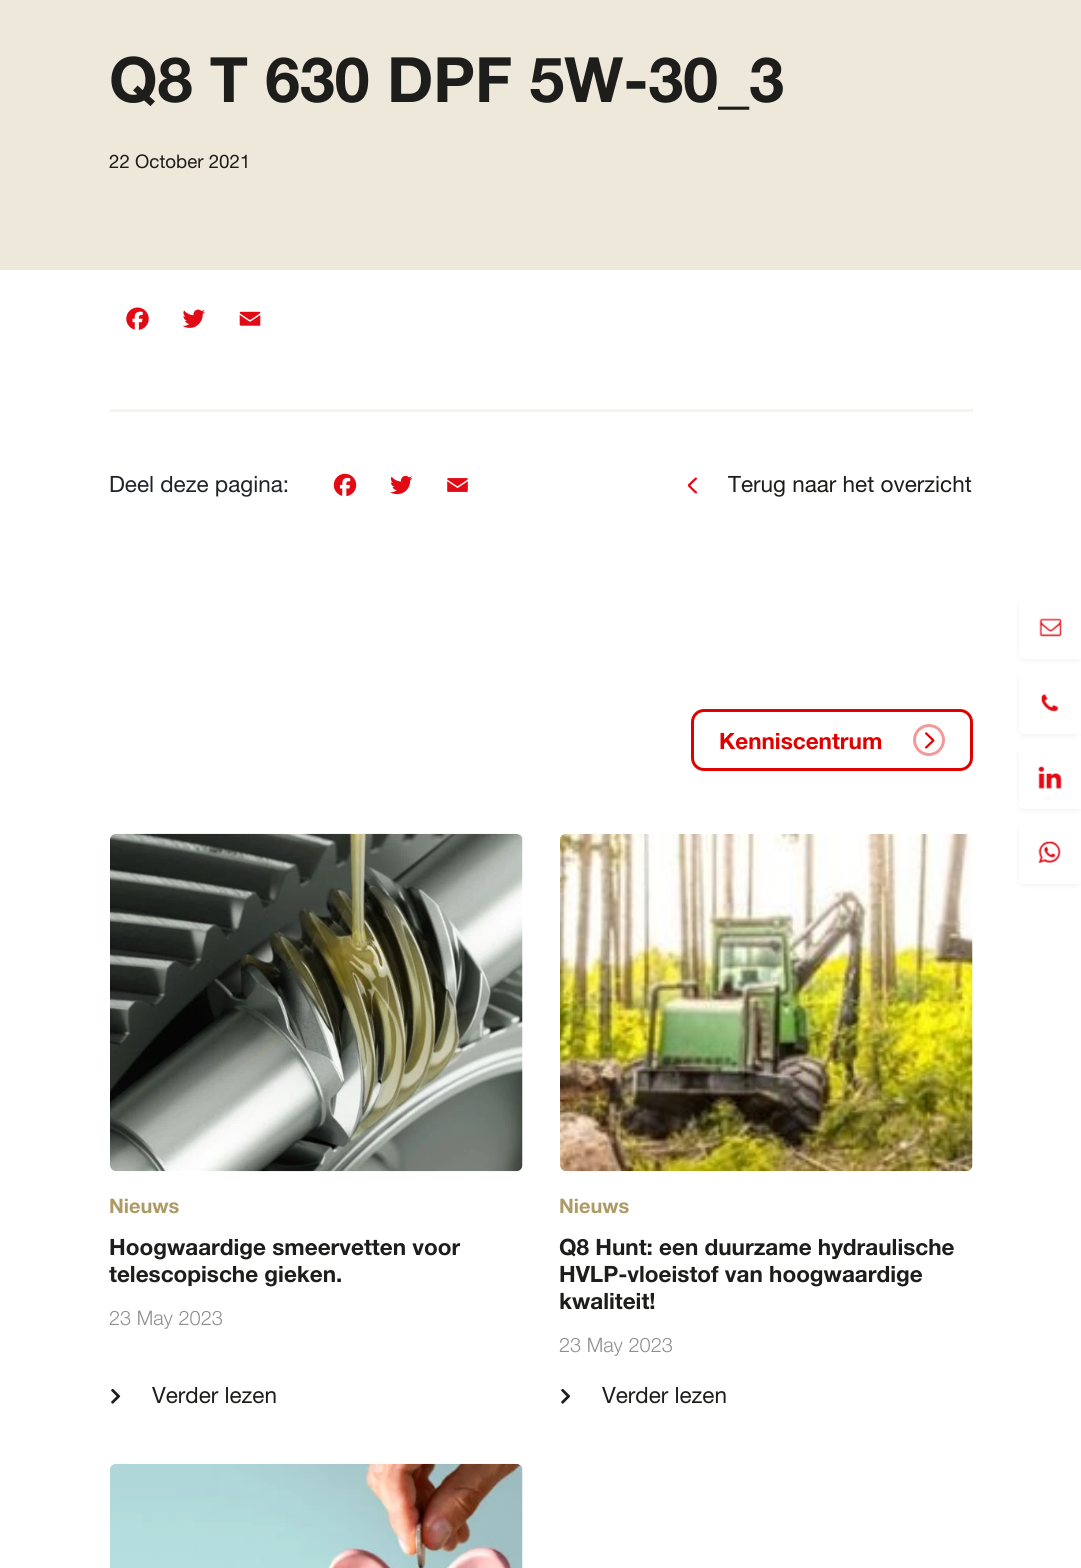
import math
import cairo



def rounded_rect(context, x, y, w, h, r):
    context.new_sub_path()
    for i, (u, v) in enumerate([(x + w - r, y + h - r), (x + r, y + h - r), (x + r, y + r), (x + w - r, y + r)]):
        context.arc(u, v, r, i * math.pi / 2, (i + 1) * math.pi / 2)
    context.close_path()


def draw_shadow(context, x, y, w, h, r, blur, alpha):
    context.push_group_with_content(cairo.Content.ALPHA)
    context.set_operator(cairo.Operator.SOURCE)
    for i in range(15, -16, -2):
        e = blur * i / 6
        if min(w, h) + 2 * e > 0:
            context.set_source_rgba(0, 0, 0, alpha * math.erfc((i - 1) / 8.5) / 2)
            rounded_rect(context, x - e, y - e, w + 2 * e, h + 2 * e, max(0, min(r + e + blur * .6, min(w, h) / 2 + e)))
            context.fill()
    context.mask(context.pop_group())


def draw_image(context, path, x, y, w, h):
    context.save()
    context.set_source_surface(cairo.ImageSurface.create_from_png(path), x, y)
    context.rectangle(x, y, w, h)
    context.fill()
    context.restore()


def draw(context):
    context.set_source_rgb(1, 1, 1)
    context.paint()
    context.set_source_rgb(237 / 255, 232 / 255, 217 / 255)
    context.rectangle(0, 0, 1081, 270)
    context.fill()
    draw_image(context, "images/1.png", 126, 307, 23, 23)
    draw_image(context, "images/2.png", 182, 309, 23, 19)
    draw_image(context, "images/3.png", 239, 311, 22, 15)
    context.set_source_rgb(246 / 255, 244 / 255, 239 / 255)
    context.rectangle(110, 409, 863, 3)
    context.fill()
    draw_image(context, "images/4.png", 333, 473, 24, 24)
    draw_image(context, "images/5.png", 390, 475, 23, 20)
    draw_image(context, "images/6.png", 447, 478, 21, 14)
    draw_image(context, "images/7.png", 688, 477, 9, 17)
    rounded_rect(context, 692.5, 710.5, 279, 59, 11.5)
    context.set_source_rgb(225 / 255, 0, 0)
    context.set_line_width(3)
    context.stroke()
    context.arc(929, 740, 14.5, 0, 2 * math.pi)
    context.set_source_rgb(243 / 255, 153 / 255, 153 / 255)
    context.stroke()
    draw_image(context, "images/8.png", 925, 732, 10, 17)
    draw_image(context, "images/9.png", 110, 833, 413, 339)
    draw_image(context, "images/10.png", 111, 1389, 10, 15)
    draw_image(context, "images/11.png", 560, 833, 413, 339)
    draw_image(context, "images/10.png", 561, 1389, 10, 15)
    draw_image(context, "images/12.png", 110, 1463, 413, 105)
    context.set_source_rgb(0, 0, 0)
    draw_shadow(context, 1019, 599, 62, 62, 6, 2.5, 0.05)
    context.set_source_rgb(1, 1, 1)
    context.new_path()
    context.move_to(1025, 596)
    context.line_to(1081, 596)
    context.line_to(1081, 659)
    context.line_to(1025, 659)
    context.curve_to(1021.5, 659, 1019, 656.5, 1019, 653)
    context.line_to(1019, 602)
    context.curve_to(1019, 598.5, 1021.5, 596, 1025, 596)
    context.close_path()
    context.fill()
    draw_image(context, "images/13.png", 1039, 618, 23, 19)
    context.set_source_rgb(0, 0, 0)
    draw_shadow(context, 1019, 674, 62, 62, 6, 2.5, 0.05)
    context.set_source_rgb(1, 1, 1)
    context.new_path()
    context.move_to(1025, 671)
    context.line_to(1081, 671)
    context.line_to(1081, 734)
    context.line_to(1025, 734)
    context.curve_to(1021.5, 734, 1019, 731.5, 1019, 728)
    context.line_to(1019, 677)
    context.curve_to(1019, 673.5, 1021.5, 671, 1025, 671)
    context.close_path()
    context.fill()
    draw_image(context, "images/14.png", 1041, 693, 18, 19)
    context.set_source_rgb(0, 0, 0)
    draw_shadow(context, 1019, 749, 62, 62, 6, 2.5, 0.05)
    context.set_source_rgb(1, 1, 1)
    context.new_path()
    context.move_to(1025, 746)
    context.line_to(1081, 746)
    context.line_to(1081, 809)
    context.line_to(1025, 809)
    context.curve_to(1021.5, 809, 1019, 806.5, 1019, 803)
    context.line_to(1019, 752)
    context.curve_to(1019, 748.5, 1021.5, 746, 1025, 746)
    context.close_path()
    context.fill()
    draw_image(context, "images/15.png", 1038, 766, 24, 23)
    context.set_source_rgb(0, 0, 0)
    draw_shadow(context, 1019, 824, 62, 62, 6, 2.5, 0.05)
    context.set_source_rgb(1, 1, 1)
    context.new_path()
    context.move_to(1025, 821)
    context.line_to(1081, 821)
    context.line_to(1081, 884)
    context.line_to(1025, 884)
    context.curve_to(1021.5, 884, 1019, 881.5, 1019, 878)
    context.line_to(1019, 827)
    context.curve_to(1019, 823.5, 1021.5, 821, 1025, 821)
    context.close_path()
    context.fill()
    draw_image(context, "images/16.png", 1038, 841, 23, 23)
    context.select_font_face("Helvetica Neue", cairo.FontSlant.NORMAL, cairo.FontWeight.BOLD)
    context.set_font_size(62.5)
    context.set_source_rgb(29 / 255, 29 / 255, 28 / 255)
    context.move_to(109, 102)
    context.show_text("Q8 T 630 DPF 5W-30_3")
    context.select_font_face("Helvetica Neue")
    context.set_font_size(18.75)
    context.move_to(109, 168)
    context.show_text("22 October 2021")
    context.set_font_size(22.5)
    context.set_source_rgb(33 / 255, 37 / 255, 41 / 255)
    context.move_to(109, 492)
    context.show_text("Deel deze pagina:")
    context.set_source_rgb(29 / 255, 29 / 255, 28 / 255)
    context.move_to(728, 492)
    context.show_text("Terug naar het overzicht")
    context.select_font_face("Helvetica Neue", cairo.FontSlant.NORMAL, cairo.FontWeight.BOLD)
    context.set_source_rgb(225 / 255, 0, 0)
    context.move_to(719, 749)
    context.show_text("Kenniscentrum")
    context.set_font_size(20)
    context.set_source_rgb(173 / 255, 154 / 255, 100 / 255)
    context.move_to(109, 1213)
    context.show_text("Nieuws")
    context.set_font_size(22.5)
    context.set_source_rgb(29 / 255, 29 / 255, 28 / 255)
    context.move_to(109, 1255)
    context.show_text("Hoogwaardige smeervetten voor")
    context.move_to(109, 1282)
    context.show_text("telescopische gieken.")
    context.select_font_face("Helvetica Neue Light")
    context.set_font_size(20)
    context.set_source_rgb(143 / 255, 143 / 255, 143 / 255)
    context.move_to(109, 1325)
    context.show_text("23 May 2023")
    context.select_font_face("Helvetica Neue")
    context.set_font_size(22.5)
    context.set_source_rgb(29 / 255, 29 / 255, 28 / 255)
    context.move_to(152, 1403)
    context.show_text("Verder lezen")
    context.select_font_face("Helvetica Neue", cairo.FontSlant.NORMAL, cairo.FontWeight.BOLD)
    context.set_font_size(20)
    context.set_source_rgb(173 / 255, 154 / 255, 100 / 255)
    context.move_to(559, 1213)
    context.show_text("Nieuws")
    context.set_font_size(22.5)
    context.set_source_rgb(29 / 255, 29 / 255, 28 / 255)
    context.move_to(559, 1255)
    context.show_text("Q8 Hunt: een duurzame hydraulische")
    context.move_to(559, 1282)
    context.show_text("HVLP-vloeistof van hoogwaardige")
    context.move_to(559, 1309)
    context.show_text("kwaliteit!")
    context.select_font_face("Helvetica Neue Light")
    context.set_font_size(20)
    context.set_source_rgb(143 / 255, 143 / 255, 143 / 255)
    context.move_to(559, 1352)
    context.show_text("23 May 2023")
    context.select_font_face("Helvetica Neue")
    context.set_font_size(22.5)
    context.set_source_rgb(29 / 255, 29 / 255, 28 / 255)
    context.move_to(602, 1403)
    context.show_text("Verder lezen")


surface = cairo.ImageSurface(cairo.Format.RGB24, 1081, 1568)
context = cairo.Context(surface)
options = cairo.FontOptions()
options.set_hint_metrics(cairo.HintMetrics.OFF)
options.set_hint_style(cairo.HintStyle.NONE)
context.set_font_options(options)
context.set_miter_limit(4)
draw(context)
surface.write_to_png("out.png")
